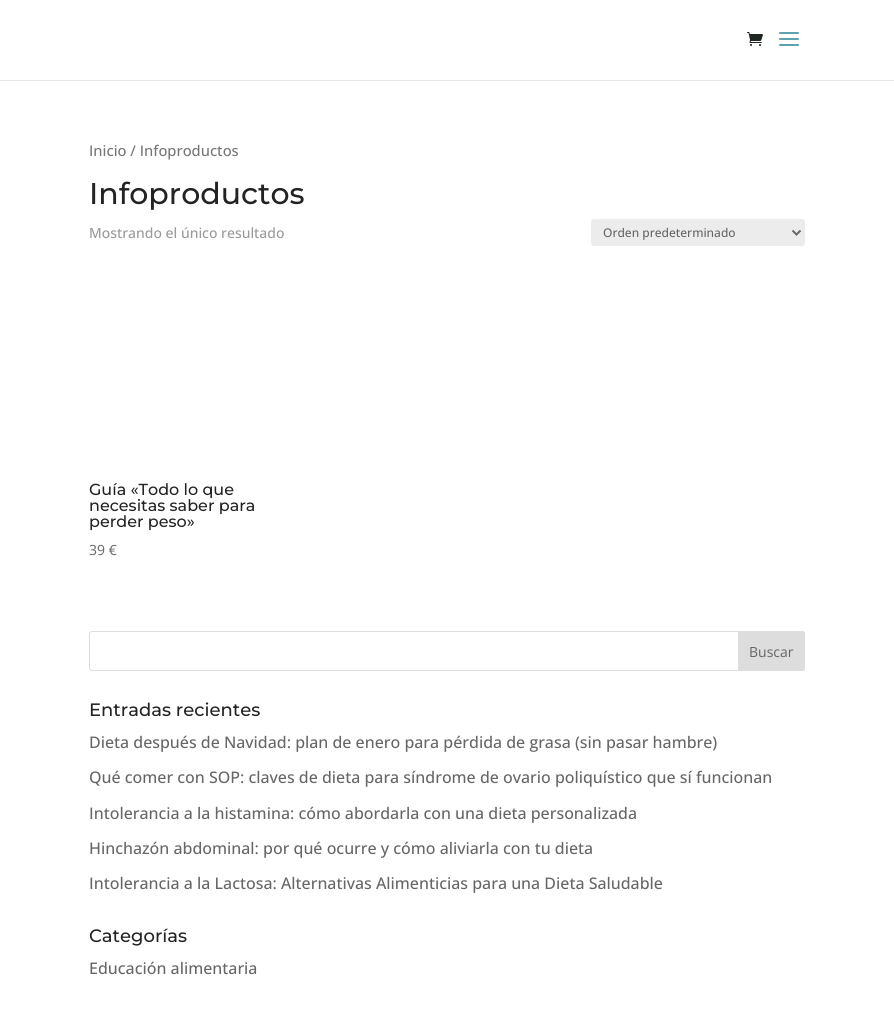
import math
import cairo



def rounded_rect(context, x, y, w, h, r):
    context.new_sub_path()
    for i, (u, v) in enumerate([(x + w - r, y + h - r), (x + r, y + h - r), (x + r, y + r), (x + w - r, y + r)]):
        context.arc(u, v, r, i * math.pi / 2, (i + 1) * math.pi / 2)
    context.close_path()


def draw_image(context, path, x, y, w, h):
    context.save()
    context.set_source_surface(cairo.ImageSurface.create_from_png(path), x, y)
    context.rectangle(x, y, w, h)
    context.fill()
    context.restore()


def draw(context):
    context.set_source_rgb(1, 1, 1)
    context.paint()
    context.set_source_rgb(230 / 255, 230 / 255, 230 / 255)
    context.rectangle(0, 80, 894, 1)
    context.fill()
    draw_image(context, "images/1.png", 747, 32, 16, 14)
    draw_image(context, "images/2.png", 779, 32, 20, 14)
    context.set_source_rgb(236 / 255, 236 / 255, 236 / 255)
    rounded_rect(context, 591, 219, 214, 27, 3)
    context.fill()
    context.new_path()
    context.move_to(792.5, 230.5)
    context.line_to(796.5, 234.5)
    context.line_to(800.5, 230.5)
    context.set_source_rgb(102 / 255, 102 / 255, 102 / 255)
    context.stroke()
    rounded_rect(context, 89.5, 631.5, 715, 39, 2.5)
    context.set_source_rgb(221 / 255, 221 / 255, 221 / 255)
    context.set_line_width(1)
    context.stroke()
    context.new_path()
    context.move_to(738.5, 631.5)
    context.line_to(802, 631.5)
    context.curve_to(803.5, 631.5, 804.5, 632.5, 804.5, 634)
    context.line_to(804.5, 668)
    context.curve_to(804.5, 669.5, 803.5, 670.5, 802, 670.5)
    context.line_to(738.5, 670.5)
    context.close_path()
    context.fill_preserve()
    context.stroke()
    context.select_font_face("Open Sans Medium")
    context.set_font_size(14.75)
    context.set_source_rgb(118 / 255, 118 / 255, 118 / 255)
    context.move_to(89, 156)
    context.show_text("Inicio / Infoproductos")
    context.select_font_face("Montserrat Thin")
    context.set_font_size(30)
    context.set_source_rgb(35 / 255, 35 / 255, 35 / 255)
    context.move_to(89, 204)
    context.show_text("Infoproductos")
    context.select_font_face("Open Sans Medium")
    context.set_font_size(14)
    context.set_source_rgb(153 / 255, 153 / 255, 153 / 255)
    context.move_to(89, 238)
    context.show_text("Mostrando el único resultado")
    context.set_font_size(12)
    context.set_source_rgb(102 / 255, 102 / 255, 102 / 255)
    context.move_to(603, 237)
    context.show_text("Orden predeterminado")
    context.select_font_face("Montserrat Thin")
    context.set_font_size(16)
    context.set_source_rgb(35 / 255, 35 / 255, 35 / 255)
    context.move_to(89, 495)
    context.show_text("Guía «Todo lo que")
    context.move_to(89, 511)
    context.show_text("necesitas saber para")
    context.move_to(89, 527)
    context.show_text("perder peso»")
    context.select_font_face("Open Sans")
    context.set_font_size(14)
    context.set_source_rgb(102 / 255, 102 / 255, 102 / 255)
    context.move_to(89, 555)
    context.show_text("39 €")
    context.move_to(749, 657)
    context.show_text("Buscar")
    context.select_font_face("Montserrat Thin")
    context.set_font_size(18)
    context.set_source_rgb(35 / 255, 35 / 255, 35 / 255)
    context.move_to(89, 716)
    context.show_text("Entradas recientes")
    context.select_font_face("Open Sans Medium")
    context.set_font_size(16)
    context.set_source_rgb(102 / 255, 102 / 255, 102 / 255)
    context.move_to(89, 748)
    context.show_text("Dieta después de Navidad: plan de enero para pérdida de grasa (sin pasar hambre)")
    context.move_to(89, 783)
    context.show_text("Qué comer con SOP: claves de dieta para síndrome de ovario poliquístico que sí funcionan")
    context.move_to(89, 819)
    context.show_text("Intolerancia a la histamina: cómo abordarla con una dieta personalizada")
    context.move_to(89, 854)
    context.show_text("Hinchazón abdominal: por qué ocurre y cómo aliviarla con tu dieta")
    context.move_to(89, 889)
    context.show_text("Intolerancia a la Lactosa: Alternativas Alimenticias para una Dieta Saludable")
    context.select_font_face("Montserrat Thin")
    context.set_font_size(18)
    context.set_source_rgb(35 / 255, 35 / 255, 35 / 255)
    context.move_to(89, 942)
    context.show_text("Categorías")
    context.select_font_face("Open Sans Medium")
    context.set_font_size(16)
    context.set_source_rgb(102 / 255, 102 / 255, 102 / 255)
    context.move_to(89, 974)
    context.show_text("Educación alimentaria")


surface = cairo.ImageSurface(cairo.Format.RGB24, 894, 1029)
context = cairo.Context(surface)
options = cairo.FontOptions()
options.set_hint_metrics(cairo.HintMetrics.OFF)
options.set_hint_style(cairo.HintStyle.NONE)
context.set_font_options(options)
context.set_miter_limit(4)
draw(context)
surface.write_to_png("out.png")
